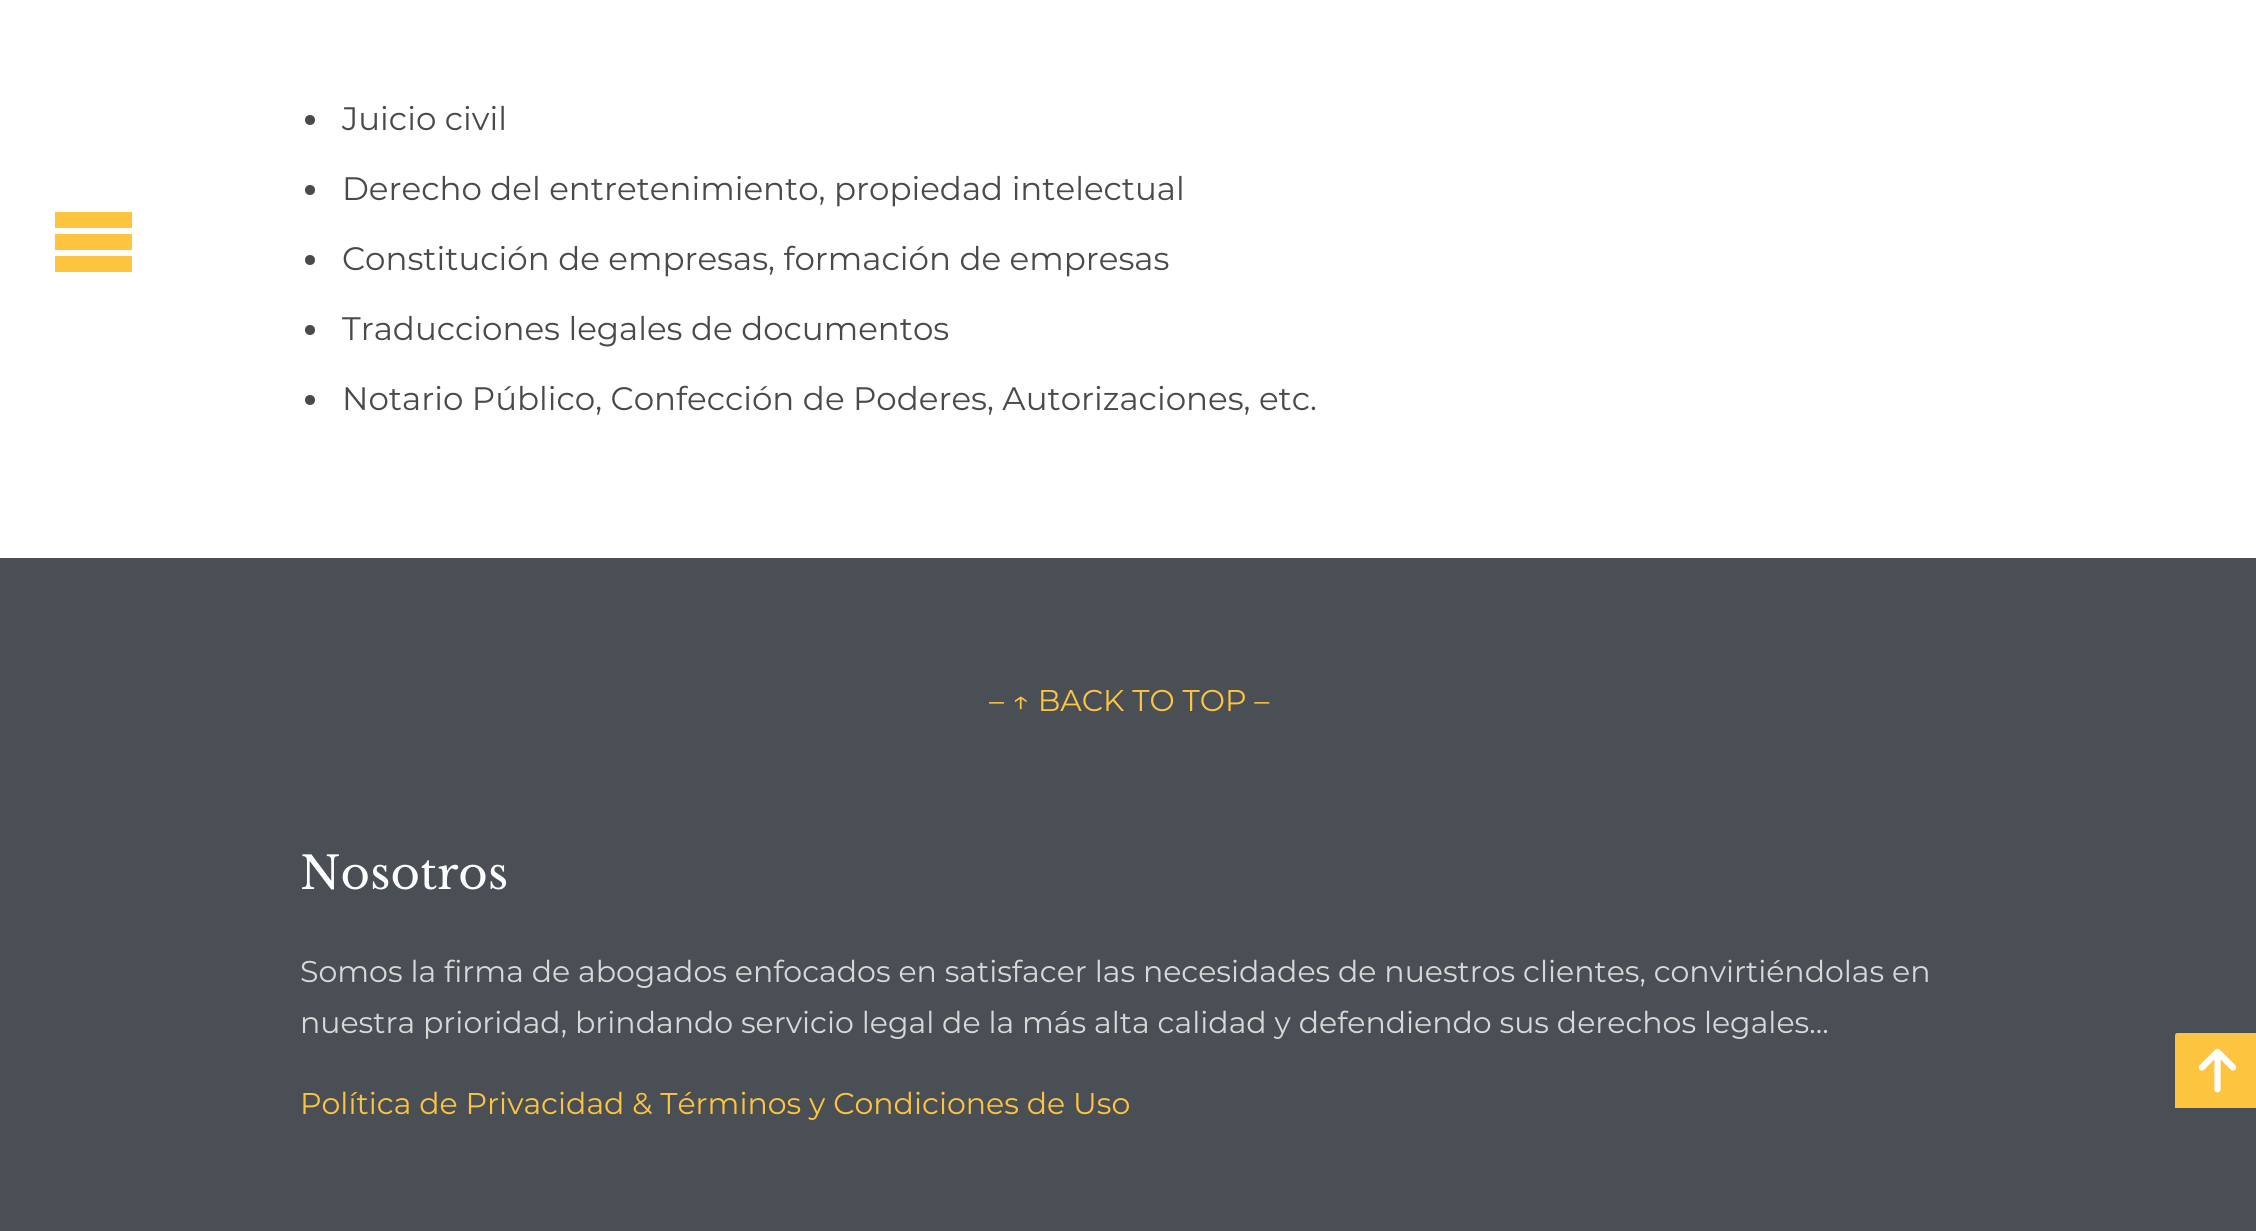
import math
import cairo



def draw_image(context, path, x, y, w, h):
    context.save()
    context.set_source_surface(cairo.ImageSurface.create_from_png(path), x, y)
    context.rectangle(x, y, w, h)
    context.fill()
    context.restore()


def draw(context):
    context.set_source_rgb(74 / 255, 79 / 255, 85 / 255)
    context.paint()
    context.set_source_rgb(1, 1, 1)
    context.rectangle(0, 0, 2256, 558)
    context.fill()
    context.set_source_rgb(253 / 255, 196 / 255, 63 / 255)
    context.new_path()
    context.move_to(55, 212)
    context.line_to(132, 212)
    context.line_to(132, 228)
    context.line_to(55, 228)
    context.close_path()
    context.move_to(55, 234)
    context.line_to(132, 234)
    context.line_to(132, 250)
    context.line_to(55, 250)
    context.close_path()
    context.move_to(55, 256)
    context.line_to(132, 256)
    context.line_to(132, 272)
    context.line_to(55, 272)
    context.close_path()
    context.fill()
    context.set_source_rgb(74 / 255, 74 / 255, 74 / 255)
    context.arc(310, 120, 5, 0, 2 * math.pi)
    context.fill()
    context.arc(310, 190, 5, 0, 2 * math.pi)
    context.fill()
    context.arc(310, 260, 5, 0, 2 * math.pi)
    context.fill()
    context.arc(310, 330, 5, 0, 2 * math.pi)
    context.fill()
    context.arc(310, 400, 5, 0, 2 * math.pi)
    context.fill()
    context.set_source_rgb(253 / 255, 196 / 255, 63 / 255)
    context.new_path()
    context.move_to(2177.5, 1033)
    context.line_to(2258, 1033)
    context.line_to(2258, 1108)
    context.line_to(2175, 1108)
    context.line_to(2175, 1035.5)
    context.curve_to(2175, 1034, 2176, 1033, 2177.5, 1033)
    context.close_path()
    context.fill()
    draw_image(context, "images/1.png", 2198, 1048, 39, 45)
    context.select_font_face("Montserrat")
    context.set_font_size(32.5)
    context.set_source_rgb(74 / 255, 74 / 255, 74 / 255)
    context.move_to(342, 130)
    context.show_text("Juicio civil")
    context.move_to(342, 200)
    context.show_text("Derecho del entretenimiento, propiedad intelectual")
    context.move_to(342, 270)
    context.show_text("Constitución de empresas, formación de empresas")
    context.move_to(342, 340)
    context.show_text("Traducciones legales de documentos")
    context.move_to(342, 410)
    context.show_text("Notario Público, Confección de Poderes, Autorizaciones, etc.")
    context.set_font_size(30)
    context.set_source_rgb(253 / 255, 196 / 255, 63 / 255)
    context.move_to(989, 711)
    context.show_text("– ↑ BACK TO TOP –")
    context.select_font_face("Libre Baskerville")
    context.set_font_size(45)
    context.set_source_rgb(1, 1, 1)
    context.move_to(300, 889)
    context.show_text("Nosotros")
    context.select_font_face("Montserrat")
    context.set_font_size(30)
    context.set_source_rgb(216 / 255, 216 / 255, 216 / 255)
    context.move_to(300, 982)
    context.show_text("Somos la firma de abogados enfocados en satisfacer las necesidades de nuestros clientes, convirtiéndolas en")
    context.move_to(300, 1033)
    context.show_text("nuestra prioridad, brindando servicio legal de la más alta calidad y defendiendo sus derechos legales…")
    context.set_source_rgb(253 / 255, 196 / 255, 63 / 255)
    context.move_to(300, 1114)
    context.show_text("Política de Privacidad & Términos y Condiciones de Uso")


surface = cairo.ImageSurface(cairo.Format.RGB24, 2256, 1231)
context = cairo.Context(surface)
options = cairo.FontOptions()
options.set_hint_metrics(cairo.HintMetrics.OFF)
options.set_hint_style(cairo.HintStyle.NONE)
context.set_font_options(options)
context.set_miter_limit(4)
draw(context)
surface.write_to_png("out.png")
